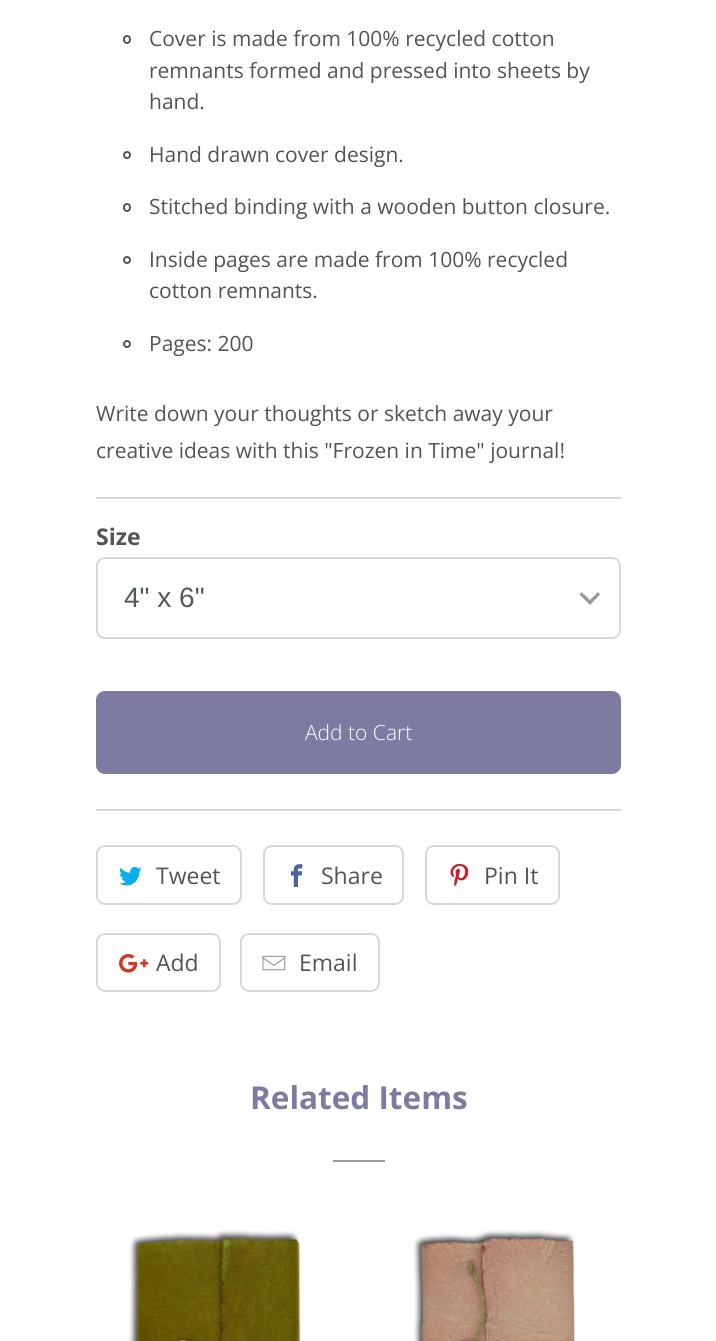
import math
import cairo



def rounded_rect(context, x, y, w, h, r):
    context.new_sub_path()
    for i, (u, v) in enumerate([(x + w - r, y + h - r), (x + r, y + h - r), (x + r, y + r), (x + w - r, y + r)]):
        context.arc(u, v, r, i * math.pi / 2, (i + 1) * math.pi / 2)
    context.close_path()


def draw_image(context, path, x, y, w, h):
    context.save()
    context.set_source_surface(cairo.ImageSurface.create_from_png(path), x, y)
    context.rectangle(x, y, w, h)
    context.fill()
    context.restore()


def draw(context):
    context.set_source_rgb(1, 1, 1)
    context.paint()
    rounded_rect(context, 124, 36, 6, 7, 3)
    context.set_source_rgb(84 / 255, 84 / 255, 84 / 255)
    context.stroke()
    context.arc(127, 155, 3, 0, 2 * math.pi)
    context.stroke()
    rounded_rect(context, 124, 204, 6, 7, 3)
    context.stroke()
    context.arc(127, 260, 3, 0, 2 * math.pi)
    context.stroke()
    context.arc(127, 344, 3, 0, 2 * math.pi)
    context.stroke()
    context.set_source_rgb(216 / 255, 216 / 255, 216 / 255)
    context.rectangle(96, 497, 525, 2)
    context.fill()
    context.set_source_rgb(149 / 255, 155 / 255, 162 / 255)
    context.new_path()
    context.move_to(598, 592)
    context.line_to(590, 600)
    context.line_to(581.5, 592)
    context.line_to(579.5, 594.5)
    context.line_to(590, 605)
    context.line_to(600, 594.5)
    context.close_path()
    context.fill()
    rounded_rect(context, 97, 558, 523, 80, 8)
    context.set_source_rgb(216 / 255, 216 / 255, 216 / 255)
    context.stroke()
    context.set_source_rgb(125 / 255, 123 / 255, 162 / 255)
    rounded_rect(context, 96, 691, 525, 83, 9)
    context.fill()
    context.set_source_rgb(216 / 255, 216 / 255, 216 / 255)
    context.rectangle(96, 809, 525, 2)
    context.fill()
    rounded_rect(context, 97, 846, 144, 58, 8)
    context.stroke()
    draw_image(context, "images/1.png", 119, 867, 23, 19)
    rounded_rect(context, 264, 846, 139, 58, 8)
    context.stroke()
    draw_image(context, "images/2.png", 290, 864, 13, 23)
    rounded_rect(context, 426, 846, 133, 58, 8)
    context.stroke()
    draw_image(context, "images/3.png", 450, 863, 19, 24)
    rounded_rect(context, 97, 934, 123, 57, 8)
    context.stroke()
    draw_image(context, "images/4.png", 119, 953, 30, 20)
    rounded_rect(context, 241, 934, 138, 57, 8)
    context.stroke()
    draw_image(context, "images/5.png", 262, 955, 24, 16)
    context.set_source_rgb(155 / 255, 159 / 255, 154 / 255)
    context.rectangle(333, 1160, 52, 2)
    context.fill()
    draw_image(context, "images/6.png", 129, 1230, 172, 111)
    draw_image(context, "images/7.png", 413, 1230, 163, 111)
    context.select_font_face("Open Sans")
    context.set_font_size(21)
    context.set_source_rgb(84 / 255, 84 / 255, 84 / 255)
    context.move_to(149, 46)
    context.show_text("Cover is made from 100% recycled cotton")
    context.move_to(149, 78)
    context.show_text("remnants formed and pressed into sheets by")
    context.move_to(149, 109)
    context.show_text("hand.")
    context.move_to(149, 162)
    context.show_text("Hand drawn cover design.")
    context.move_to(149, 214)
    context.show_text("Stitched binding with a wooden button closure.")
    context.move_to(149, 267)
    context.show_text("Inside pages are made from 100% recycled")
    context.move_to(149, 298)
    context.show_text("cotton remnants.")
    context.move_to(149, 351)
    context.show_text("Pages: 200")
    context.move_to(96, 421)
    context.show_text("Write down your thoughts or sketch away your")
    context.move_to(96, 458)
    context.show_text("creative ideas with this \"Frozen in Time\" journal!")
    context.select_font_face("Open Sans", cairo.FontSlant.NORMAL, cairo.FontWeight.BOLD)
    context.set_font_size(23)
    context.move_to(96, 545)
    context.show_text("Size")
    context.select_font_face("Liberation Sans")
    context.set_font_size(28)
    context.set_source_rgb(81 / 255, 89 / 255, 93 / 255)
    context.move_to(124, 607)
    context.show_text("4\" x 6\"")
    context.select_font_face("Open Sans Light")
    context.set_font_size(21)
    context.set_source_rgb(1, 1, 1)
    context.move_to(305, 740)
    context.show_text("Add to Cart")
    context.select_font_face("Open Sans")
    context.set_font_size(23)
    context.set_source_rgb(84 / 255, 84 / 255, 84 / 255)
    context.move_to(156, 884)
    context.show_text("Tweet")
    context.move_to(321, 884)
    context.show_text("Share")
    context.move_to(484, 884)
    context.show_text("Pin It")
    context.move_to(156, 971)
    context.show_text("Add")
    context.move_to(299, 971)
    context.show_text("Email")
    context.select_font_face("Open Sans", cairo.FontSlant.NORMAL, cairo.FontWeight.BOLD)
    context.set_font_size(31.5)
    context.set_source_rgb(125 / 255, 123 / 255, 162 / 255)
    context.move_to(250, 1109)
    context.show_text("Related Items")


surface = cairo.ImageSurface(cairo.Format.RGB24, 716, 1341)
context = cairo.Context(surface)
options = cairo.FontOptions()
options.set_hint_metrics(cairo.HintMetrics.OFF)
options.set_hint_style(cairo.HintStyle.NONE)
context.set_font_options(options)
context.set_miter_limit(4)
draw(context)
surface.write_to_png("out.png")
